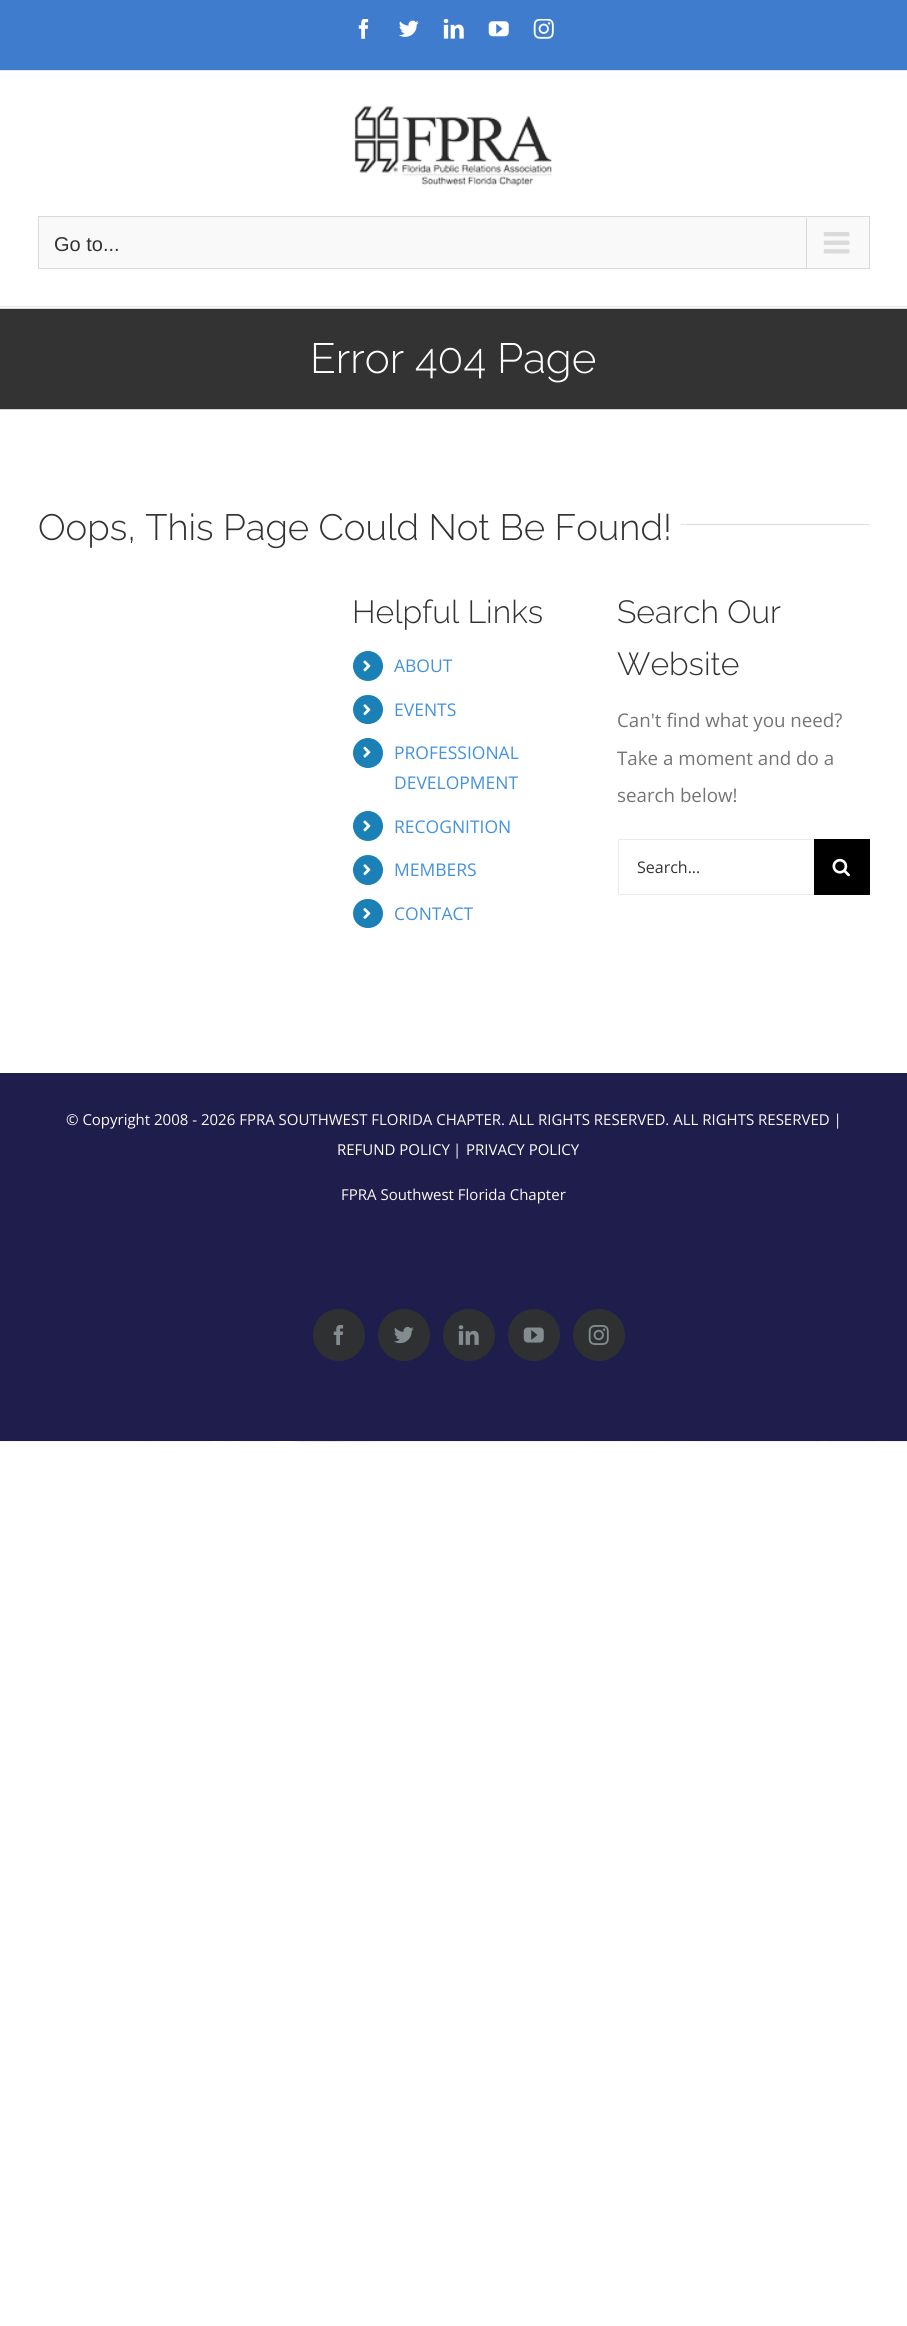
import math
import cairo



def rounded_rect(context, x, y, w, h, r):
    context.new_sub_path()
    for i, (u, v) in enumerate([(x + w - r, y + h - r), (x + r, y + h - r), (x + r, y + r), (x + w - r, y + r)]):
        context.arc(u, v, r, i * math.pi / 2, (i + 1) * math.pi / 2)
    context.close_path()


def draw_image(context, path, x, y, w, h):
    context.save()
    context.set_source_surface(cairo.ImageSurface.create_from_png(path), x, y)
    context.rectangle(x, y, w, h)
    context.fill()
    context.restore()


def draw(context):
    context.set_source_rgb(1, 1, 1)
    context.paint()
    draw_image(context, "images/1.png", 0, 1441, 907, 1)
    context.set_source_rgb(63 / 255, 124 / 255, 205 / 255)
    context.rectangle(0, 0, 907, 70)
    context.fill()
    context.set_source_rgb(229 / 255, 229 / 255, 229 / 255)
    context.rectangle(0, 70, 907, 1)
    context.fill()
    draw_image(context, "images/2.png", 358, 19, 11, 20)
    draw_image(context, "images/3.png", 399, 20, 20, 17)
    draw_image(context, "images/4.png", 443, 19, 21, 20)
    draw_image(context, "images/5.png", 488, 21, 21, 16)
    draw_image(context, "images/6.png", 533, 19, 21, 20)
    context.rectangle(0, 306, 907, 1)
    context.fill()
    draw_image(context, "images/7.png", 354, 106, 198, 81)
    context.set_source_rgb(249 / 255, 249 / 255, 249 / 255)
    context.rectangle(38.5, 216.5, 831, 52)
    context.fill_preserve()
    context.set_source_rgb(218 / 255, 218 / 255, 218 / 255)
    context.set_line_width(1)
    context.stroke()
    context.rectangle(806, 218, 1, 50)
    context.fill()
    draw_image(context, "images/8.png", 823, 232, 27, 22)
    context.set_source_rgb(51 / 255, 51 / 255, 51 / 255)
    context.rectangle(0, 309, 907, 100)
    context.fill()
    context.set_source_rgb(210 / 255, 211 / 255, 212 / 255)
    context.rectangle(0, 308, 907, 1)
    context.fill()
    context.rectangle(0, 409, 907, 1)
    context.fill()
    context.set_source_rgb(224 / 255, 222 / 255, 222 / 255)
    context.rectangle(681, 524, 189, 1)
    context.fill()
    context.set_source_rgb(26 / 255, 128 / 255, 182 / 255)
    context.arc(368, 666, 15, 0, 2 * math.pi)
    context.fill()
    draw_image(context, "images/9.png", 363, 660, 8, 12)
    rounded_rect(context, 353, 695, 30, 29, 14.5)
    context.fill()
    draw_image(context, "images/10.png", 363, 704, 8, 12)
    context.arc(368, 753, 15, 0, 2 * math.pi)
    context.fill()
    draw_image(context, "images/11.png", 363, 746, 8, 12)
    context.arc(368, 826, 15, 0, 2 * math.pi)
    context.fill()
    draw_image(context, "images/9.png", 363, 820, 8, 12)
    context.arc(368, 870, 15, 0, 2 * math.pi)
    context.fill()
    draw_image(context, "images/10.png", 363, 864, 8, 12)
    rounded_rect(context, 353, 899, 30, 29, 14.5)
    context.fill()
    draw_image(context, "images/12.png", 363, 908, 8, 11)
    context.set_source_rgb(234 / 255, 234 / 255, 234 / 255)
    context.rectangle(618, 839, 196, 1)
    context.fill()
    context.rectangle(618, 894, 196, 1)
    context.fill()
    context.rectangle(618, 839, 1, 56)
    context.fill()
    context.set_source_rgb(0, 0, 0)
    context.rectangle(814, 839, 56, 56)
    context.fill()
    draw_image(context, "images/13.png", 832, 858, 18, 19)
    context.set_source_rgb(30 / 255, 29 / 255, 76 / 255)
    context.rectangle(0, 1073, 907, 368)
    context.fill()
    context.set_source_rgb(47 / 255, 48 / 255, 50 / 255)
    context.arc(339, 1335, 25.5, 0, 2 * math.pi)
    context.fill_preserve()
    context.stroke()
    draw_image(context, "images/14.png", 333, 1325, 11, 20)
    context.arc(404, 1335, 25.5, 0, 2 * math.pi)
    context.fill_preserve()
    context.stroke()
    draw_image(context, "images/15.png", 394, 1326, 20, 18)
    context.arc(469, 1335, 25.5, 0, 2 * math.pi)
    context.fill_preserve()
    context.stroke()
    draw_image(context, "images/16.png", 458, 1325, 21, 20)
    context.arc(534, 1335, 25.5, 0, 2 * math.pi)
    context.fill_preserve()
    context.stroke()
    draw_image(context, "images/17.png", 523, 1327, 21, 16)
    context.arc(599, 1335, 25.5, 0, 2 * math.pi)
    context.fill_preserve()
    context.stroke()
    draw_image(context, "images/18.png", 588, 1325, 21, 20)
    context.select_font_face("Liberation Sans")
    context.set_font_size(20)
    context.set_source_rgb(51 / 255, 51 / 255, 51 / 255)
    context.move_to(54, 251)
    context.show_text("Go to...")
    context.select_font_face("Raleway Light")
    context.set_font_size(42.25)
    context.set_source_rgb(1, 1, 1)
    context.move_to(310, 373)
    context.show_text("Error 404 Page")
    context.set_font_size(36.6)
    context.set_source_rgb(51 / 255, 51 / 255, 51 / 255)
    context.move_to(38, 540)
    context.show_text("Oops, This Page Could Not Be Found!")
    context.set_font_size(32)
    context.move_to(352, 623)
    context.show_text("Helpful Links")
    context.select_font_face("Open Sans")
    context.set_font_size(17.5)
    context.set_source_rgb(68 / 255, 145 / 255, 221 / 255)
    context.move_to(394, 672)
    context.show_text("ABOUT")
    context.move_to(394, 716)
    context.show_text("EVENTS")
    context.move_to(394, 759)
    context.show_text("PROFESSIONAL")
    context.move_to(394, 789)
    context.show_text("DEVELOPMENT")
    context.move_to(394, 833)
    context.show_text("RECOGNITION")
    context.move_to(394, 876)
    context.show_text("MEMBERS")
    context.move_to(394, 920)
    context.show_text("CONTACT")
    context.select_font_face("Raleway Light")
    context.set_font_size(32)
    context.set_source_rgb(51 / 255, 51 / 255, 51 / 255)
    context.move_to(617, 623)
    context.show_text("Search Our")
    context.move_to(617, 675)
    context.show_text("Website")
    context.select_font_face("Open Sans")
    context.set_font_size(18.75)
    context.set_source_rgb(116 / 255, 116 / 255, 116 / 255)
    context.move_to(617, 727)
    context.show_text("Can't find what you need?")
    context.move_to(617, 765)
    context.show_text("Take a moment and do a")
    context.move_to(617, 802)
    context.show_text("search below!")
    context.set_font_size(16)
    context.set_source_rgb(51 / 255, 51 / 255, 51 / 255)
    context.move_to(637, 873)
    context.show_text("Search...")
    context.set_font_size(15)
    context.set_source_rgb(1, 247 / 255, 247 / 255)
    context.move_to(66, 1125)
    context.show_text("© Copyright 2008 - 2026 FPRA SOUTHWEST FLORIDA CHAPTER. ALL RIGHTS RESERVED. ALL RIGHTS RESERVED |")
    context.set_source_rgb(1, 1, 1)
    context.move_to(337, 1155)
    context.show_text("REFUND POLICY")
    context.set_source_rgb(1, 247 / 255, 247 / 255)
    context.move_to(453, 1155)
    context.show_text("|")
    context.set_source_rgb(1, 1, 1)
    context.move_to(466, 1155)
    context.show_text("PRIVACY POLICY")
    context.set_source_rgb(1, 247 / 255, 247 / 255)
    context.move_to(341, 1200)
    context.show_text("FPRA Southwest Florida Chapter")


surface = cairo.ImageSurface(cairo.Format.RGB24, 907, 2326)
context = cairo.Context(surface)
options = cairo.FontOptions()
options.set_hint_metrics(cairo.HintMetrics.OFF)
options.set_hint_style(cairo.HintStyle.NONE)
context.set_font_options(options)
context.set_miter_limit(4)
draw(context)
surface.write_to_png("out.png")
